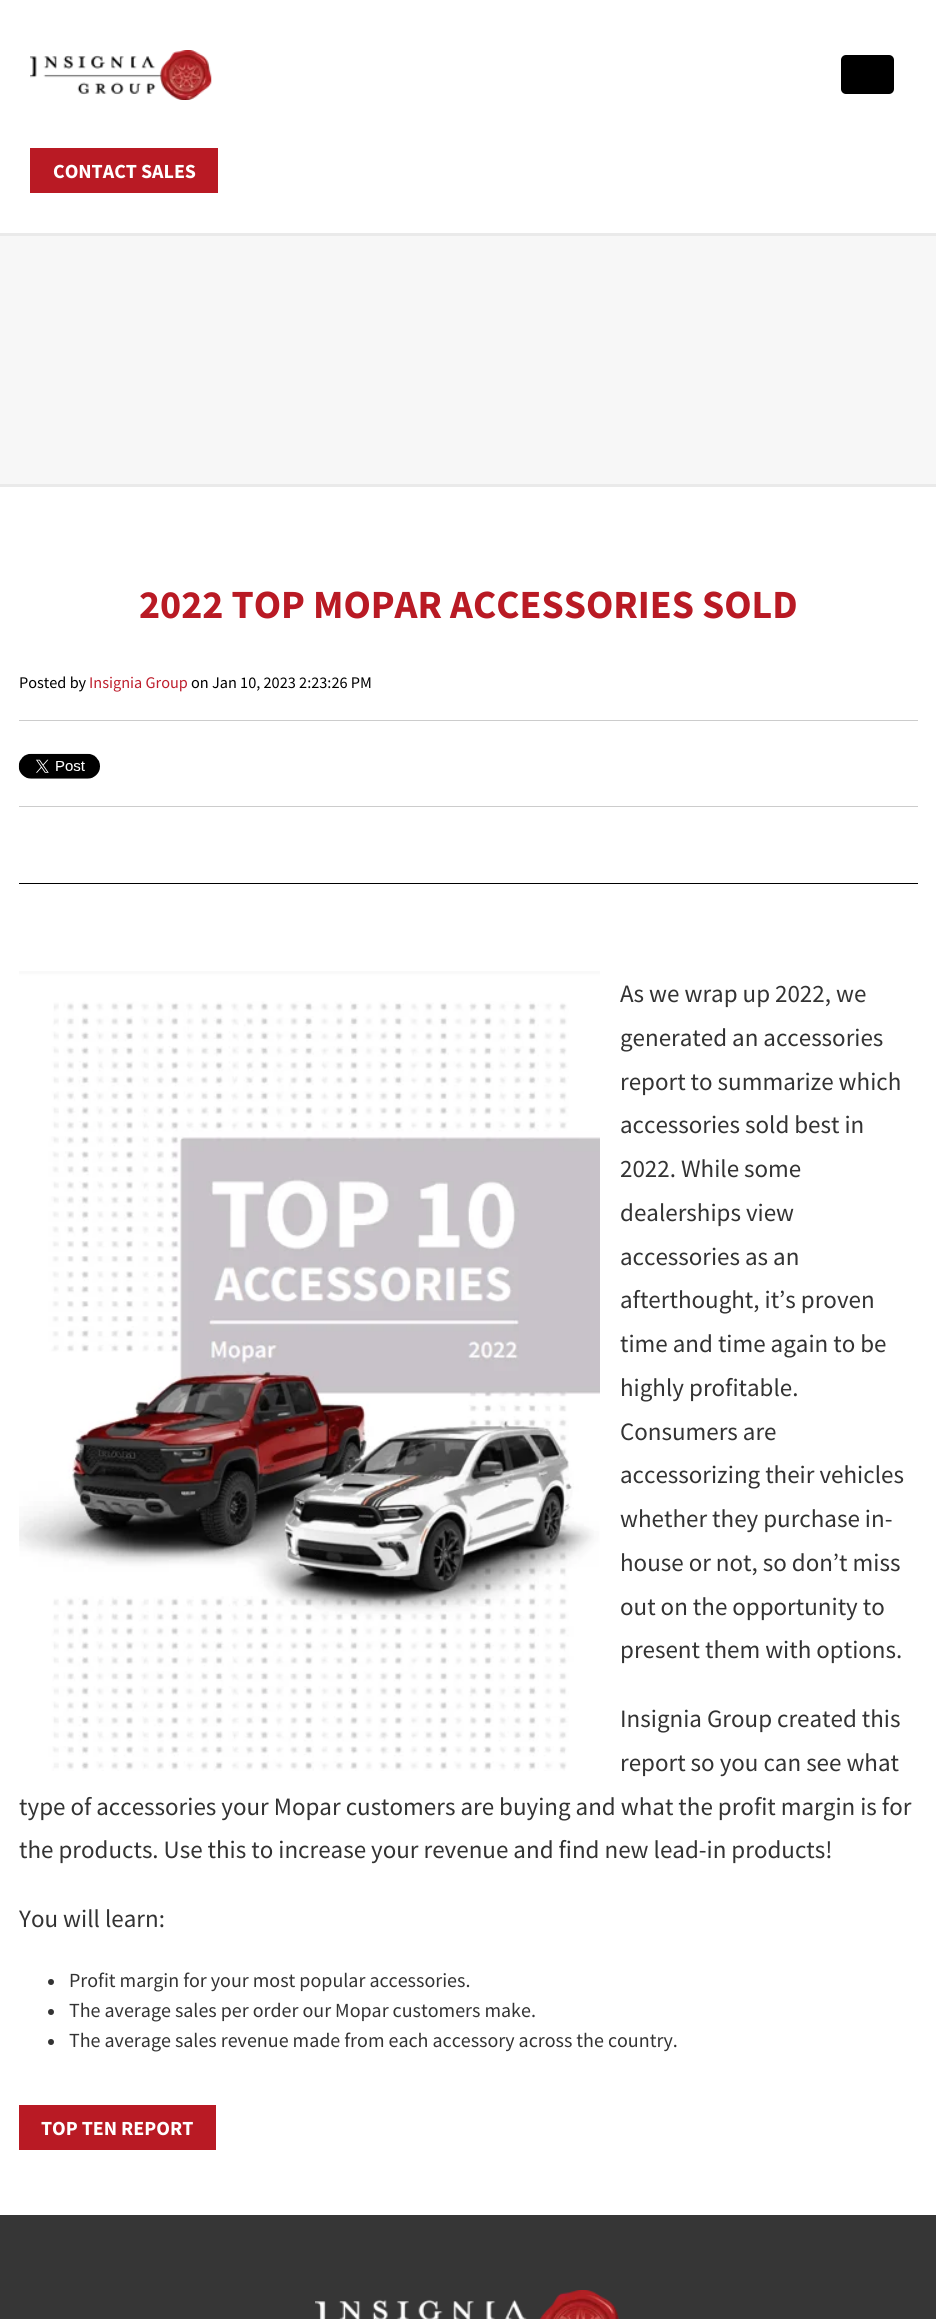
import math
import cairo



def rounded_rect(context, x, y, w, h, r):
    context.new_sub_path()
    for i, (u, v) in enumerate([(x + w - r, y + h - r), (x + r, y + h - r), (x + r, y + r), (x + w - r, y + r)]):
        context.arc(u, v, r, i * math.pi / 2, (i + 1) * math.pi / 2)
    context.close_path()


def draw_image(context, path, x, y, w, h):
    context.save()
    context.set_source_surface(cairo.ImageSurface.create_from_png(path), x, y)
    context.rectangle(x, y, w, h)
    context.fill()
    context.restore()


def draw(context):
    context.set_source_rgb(1, 1, 1)
    context.paint()
    draw_image(context, "images/1.png", 30, 50, 182, 50)
    context.set_source_rgb(0, 0, 0)
    rounded_rect(context, 841, 55, 53, 39, 5)
    context.fill()
    context.set_source_rgb(185 / 255, 26 / 255, 36 / 255)
    context.rectangle(30, 148, 188, 45)
    context.fill()
    context.set_source_rgb(247 / 255, 247 / 255, 247 / 255)
    context.rectangle(0, 236, 936, 248)
    context.fill()
    context.set_source_rgb(234 / 255, 234 / 255, 234 / 255)
    context.rectangle(0, 233, 936, 3)
    context.fill()
    context.rectangle(0, 484, 936, 3)
    context.fill()
    context.set_source_rgb(204 / 255, 204 / 255, 204 / 255)
    context.rectangle(19, 720, 899, 1)
    context.fill()
    context.rectangle(19, 806, 899, 1)
    context.fill()
    draw_image(context, "images/2.png", 18, 753, 82, 26)
    context.set_source_rgb(0, 0, 0)
    context.rectangle(19, 883, 899, 1)
    context.fill()
    draw_image(context, "images/3.png", 19, 971, 581, 800)
    context.set_source_rgb(51 / 255, 51 / 255, 51 / 255)
    context.arc(51, 1982, 3, 0, 2 * math.pi)
    context.fill()
    context.arc(51, 2012, 3, 0, 2 * math.pi)
    context.fill()
    context.arc(51, 2042, 3, 0, 2 * math.pi)
    context.fill()
    context.set_source_rgb(185 / 255, 26 / 255, 36 / 255)
    context.rectangle(19, 2105, 197, 45)
    context.fill()
    context.set_source_rgb(54 / 255, 54 / 255, 54 / 255)
    context.rectangle(0, 2215, 936, 104)
    context.fill()
    draw_image(context, "images/4.png", 315, 2290, 304, 29)
    context.select_font_face("Source Sans Pro", cairo.FontSlant.NORMAL, cairo.FontWeight.BOLD)
    context.set_font_size(20)
    context.set_source_rgb(1, 1, 1)
    context.move_to(53, 178)
    context.show_text("CONTACT SALES")
    context.set_font_size(40)
    context.set_source_rgb(185 / 255, 26 / 255, 36 / 255)
    context.move_to(139, 618)
    context.show_text("2022 TOP MOPAR ACCESSORIES SOLD")
    context.select_font_face("Source Sans Pro")
    context.set_font_size(16.25)
    context.set_source_rgb(0, 0, 0)
    context.move_to(19, 688)
    context.show_text("Posted by")
    context.set_source_rgb(190 / 255, 30 / 255, 45 / 255)
    context.move_to(89, 688)
    context.show_text("Insignia Group")
    context.set_source_rgb(0, 0, 0)
    context.move_to(191, 688)
    context.show_text("on Jan 10, 2023 2:23:26 PM")
    context.set_font_size(25)
    context.set_source_rgb(51 / 255, 51 / 255, 51 / 255)
    context.move_to(620, 1002)
    context.show_text("As we wrap up 2022, we")
    context.move_to(620, 1046)
    context.show_text("generated an accessories")
    context.move_to(620, 1090)
    context.show_text("report to summarize which")
    context.move_to(620, 1133)
    context.show_text("accessories sold best in")
    context.move_to(620, 1177)
    context.show_text("2022. While some")
    context.move_to(620, 1221)
    context.show_text("dealerships view")
    context.move_to(620, 1265)
    context.show_text("accessories as an")
    context.move_to(620, 1308)
    context.show_text("afterthought, it’s proven")
    context.move_to(620, 1352)
    context.show_text("time and time again to be")
    context.move_to(620, 1396)
    context.show_text("highly profitable.")
    context.move_to(620, 1440)
    context.show_text("Consumers are")
    context.move_to(620, 1483)
    context.show_text("accessorizing their vehicles")
    context.move_to(620, 1527)
    context.show_text("whether they purchase in-")
    context.move_to(620, 1571)
    context.show_text("house or not, so don’t miss")
    context.move_to(620, 1615)
    context.show_text("out on the opportunity to")
    context.move_to(620, 1658)
    context.show_text("present them with options.")
    context.move_to(620, 1727)
    context.show_text("Insignia Group created this")
    context.move_to(620, 1771)
    context.show_text("report so you can see what")
    context.move_to(19, 1815)
    context.show_text("type of accessories your Mopar customers are buying and what the profit margin is for")
    context.move_to(19, 1858)
    context.show_text("the products. Use this to increase your revenue and find new lead-in products!")
    context.move_to(19, 1927)
    context.show_text("You will learn:")
    context.set_font_size(20)
    context.move_to(69, 1987)
    context.show_text("Profit margin for your most popular accessories.")
    context.move_to(69, 2017)
    context.show_text("The average sales per order our Mopar customers make.")
    context.move_to(69, 2047)
    context.show_text("The average sales revenue made from each accessory across the country.")
    context.select_font_face("Source Sans Pro", cairo.FontSlant.NORMAL, cairo.FontWeight.BOLD)
    context.set_source_rgb(1, 1, 1)
    context.move_to(41, 2135)
    context.show_text("TOP TEN REPORT")


surface = cairo.ImageSurface(cairo.Format.RGB24, 936, 2319)
context = cairo.Context(surface)
options = cairo.FontOptions()
options.set_hint_metrics(cairo.HintMetrics.OFF)
options.set_hint_style(cairo.HintStyle.NONE)
context.set_font_options(options)
context.set_miter_limit(4)
draw(context)
surface.write_to_png("out.png")
